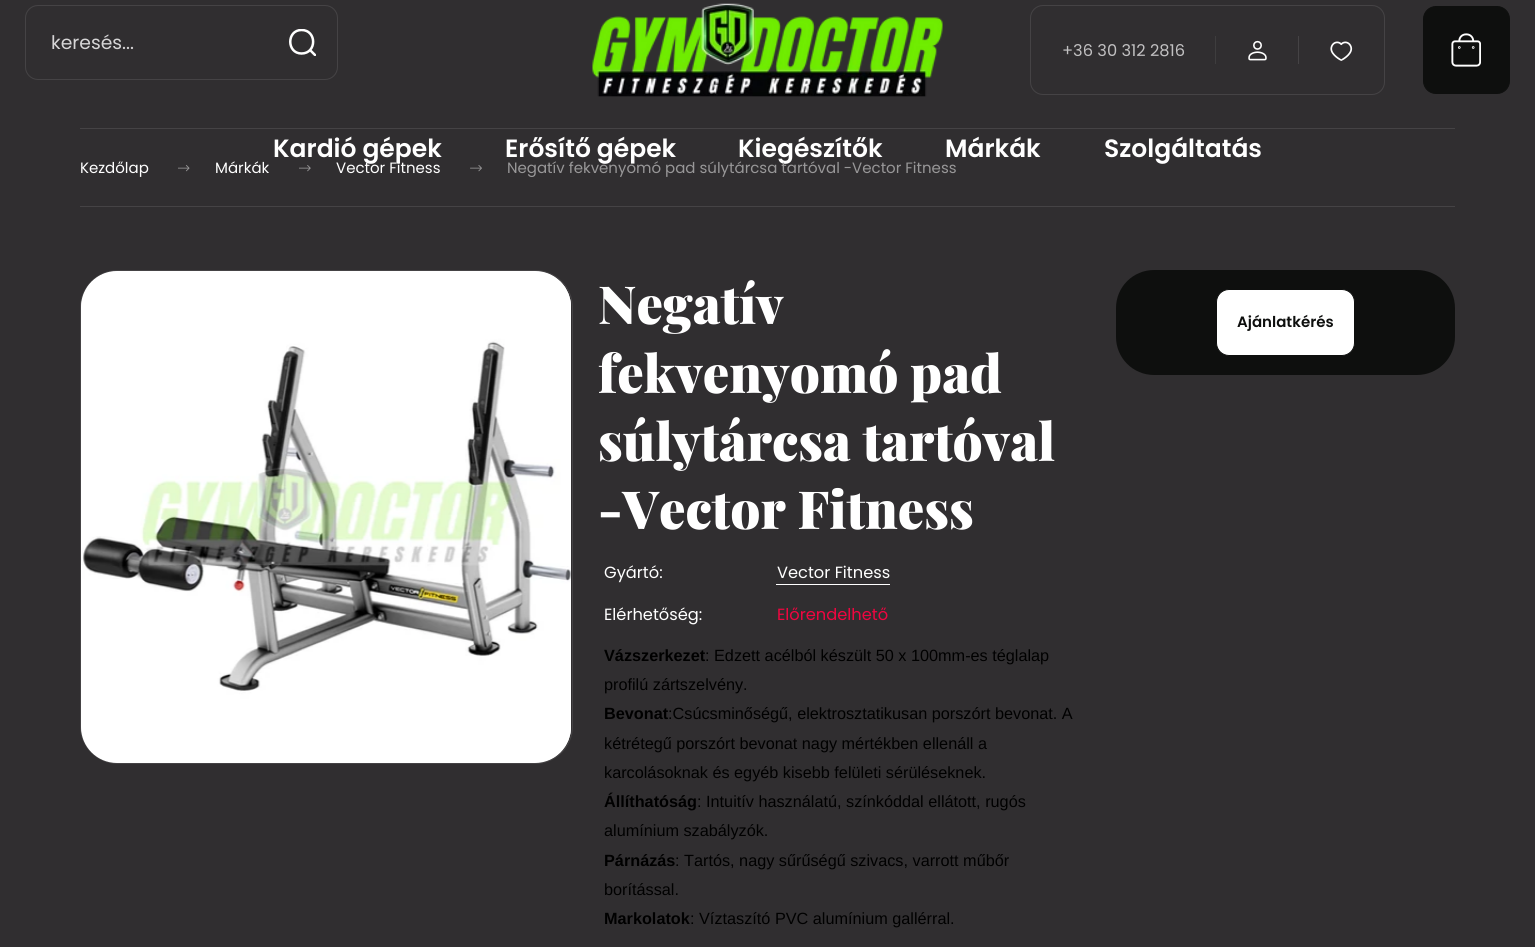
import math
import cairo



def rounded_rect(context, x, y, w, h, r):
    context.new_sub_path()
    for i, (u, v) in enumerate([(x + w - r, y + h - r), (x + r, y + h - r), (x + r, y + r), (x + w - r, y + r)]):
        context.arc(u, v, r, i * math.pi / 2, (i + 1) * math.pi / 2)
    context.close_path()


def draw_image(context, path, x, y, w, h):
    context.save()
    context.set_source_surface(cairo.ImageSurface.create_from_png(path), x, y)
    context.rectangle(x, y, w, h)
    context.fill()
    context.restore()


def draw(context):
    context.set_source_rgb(48 / 255, 46 / 255, 48 / 255)
    context.paint()
    rounded_rect(context, 25.5, 5.5, 312, 74, 12.5)
    context.set_source_rgb(69 / 255, 67 / 255, 69 / 255)
    context.set_line_width(1)
    context.stroke()
    context.save()
    context.rectangle(289, 29, 27, 27)
    context.clip()
    context.new_path()
    context.move_to(315, 55)
    context.line_to(310, 50)
    context.move_to(301.5, 53.5)
    context.curve_to(286.5, 53.5, 286.5, 30, 301.5, 30)
    context.curve_to(317, 30, 317, 53.5, 301.5, 53.5)
    context.close_path()
    context.set_source_rgb(1, 1, 1)
    context.set_line_width(2.5)
    context.set_line_cap(cairo.LineCap.ROUND)
    context.set_line_join(cairo.LineJoin.ROUND)
    context.stroke()
    context.restore()
    draw_image(context, "images/1.png", 592, 3, 351, 94)
    rounded_rect(context, 1030.5, 5.5, 354, 89, 12.5)
    context.stroke()
    context.set_source_rgb(62 / 255, 61 / 255, 62 / 255)
    context.rectangle(1215, 36, 1, 28)
    context.fill()
    draw_image(context, "images/2.png", 1248, 40, 19, 21)
    context.set_source_rgb(69 / 255, 67 / 255, 69 / 255)
    context.rectangle(1298, 36, 1, 28)
    context.fill()
    draw_image(context, "images/3.png", 1330, 41, 23, 20)
    context.set_source_rgb(14 / 255, 15 / 255, 14 / 255)
    rounded_rect(context, 1423.5, 6.5, 86, 87, 12.5)
    context.fill_preserve()
    context.stroke()
    draw_image(context, "images/4.png", 1451, 33, 30, 34)
    context.set_source_rgb(69 / 255, 67 / 255, 69 / 255)
    context.rectangle(80, 128, 1375, 1)
    context.fill()
    context.rectangle(80, 206, 1375, 1)
    context.fill()
    draw_image(context, "images/5.png", 178, 165, 12, 7)
    draw_image(context, "images/6.png", 299, 165, 12, 7)
    draw_image(context, "images/7.png", 470, 165, 12, 7)
    rounded_rect(context, 80.5, 270.5, 492, 493, 37.5)
    context.stroke()
    context.set_source_rgb(1, 1, 1)
    rounded_rect(context, 81, 271, 490, 492, 36)
    context.fill()
    draw_image(context, "images/8.png", 81, 271, 490, 492)
    context.rectangle(776, 584, 114, 1)
    context.fill()
    context.set_source_rgb(14 / 255, 15 / 255, 14 / 255)
    rounded_rect(context, 1116, 270, 339, 105, 38)
    context.fill()
    context.set_source_rgb(1, 1, 1)
    rounded_rect(context, 1216.5, 289.5, 138, 66, 12.5)
    context.fill_preserve()
    context.set_source_rgb(14 / 255, 15 / 255, 14 / 255)
    context.stroke()
    context.select_font_face("Poppins")
    context.set_font_size(18.75)
    context.set_source_rgb(214 / 255, 213 / 255, 214 / 255)
    context.move_to(51, 49)
    context.show_text("keresés...")
    context.set_font_size(16.25)
    context.set_source_rgb(193 / 255, 192 / 255, 193 / 255)
    context.move_to(1062, 56)
    context.show_text("+36 30 312 2816")
    context.select_font_face("Poppins SemiBold")
    context.set_font_size(25)
    context.set_source_rgb(1, 1, 1)
    context.move_to(273, 157)
    context.show_text("Kardió gépek")
    context.move_to(505, 157)
    context.show_text("Erősítő gépek")
    context.move_to(738, 157)
    context.show_text("Kiegészítők")
    context.move_to(945, 157)
    context.show_text("Márkák")
    context.move_to(1104, 157)
    context.show_text("Szolgáltatás")
    context.select_font_face("Poppins")
    context.set_font_size(15)
    context.move_to(80, 173)
    context.show_text("Kezdőlap")
    context.move_to(215, 173)
    context.show_text("Márkák")
    context.move_to(336, 173)
    context.show_text("Vector Fitness")
    context.set_source_rgb(152 / 255, 151 / 255, 152 / 255)
    context.move_to(507, 173)
    context.show_text("Negatív fekvenyomó pad súlytárcsa tartóval -Vector Fitness")
    context.select_font_face("Playfair Display Black")
    context.set_font_size(52.5)
    context.set_source_rgb(1, 1, 1)
    context.move_to(598, 324)
    context.show_text("Negatív")
    context.move_to(598, 393)
    context.show_text("fekvenyomó pad")
    context.move_to(598, 461)
    context.show_text("súlytárcsa tartóval")
    context.move_to(598, 529)
    context.show_text("-Vector Fitness")
    context.select_font_face("Poppins")
    context.set_font_size(16.25)
    context.move_to(604, 578)
    context.show_text("Gyártó:")
    context.move_to(777, 578)
    context.show_text("Vector Fitness")
    context.move_to(604, 620)
    context.show_text("Elérhetőség:")
    context.set_source_rgb(240 / 255, 5 / 255, 64 / 255)
    context.move_to(777, 620)
    context.show_text("Előrendelhető")
    context.select_font_face("Liberation Sans", cairo.FontSlant.NORMAL, cairo.FontWeight.BOLD)
    context.set_source_rgb(0, 0, 0)
    context.move_to(604, 661)
    context.show_text("Vázszerkezet")
    context.select_font_face("Liberation Sans")
    context.move_to(705, 661)
    context.show_text(": Edzett acélból készült 50 x 100mm-es téglalap")
    context.move_to(604, 690)
    context.show_text("profilú zártszelvény.")
    context.select_font_face("Liberation Sans", cairo.FontSlant.NORMAL, cairo.FontWeight.BOLD)
    context.move_to(604, 719)
    context.show_text("Bevonat")
    context.select_font_face("Liberation Sans")
    context.move_to(668, 719)
    context.show_text(":Csúcsminőségű, elektrosztatikusan porszórt bevonat. A")
    context.move_to(604, 749)
    context.show_text("kétrétegű porszórt bevonat nagy mértékben ellenáll a")
    context.move_to(604, 778)
    context.show_text("karcolásoknak és egyéb kisebb felületi sérüléseknek.")
    context.select_font_face("Liberation Sans", cairo.FontSlant.NORMAL, cairo.FontWeight.BOLD)
    context.move_to(604, 807)
    context.show_text("Állíthatóság")
    context.select_font_face("Liberation Sans")
    context.move_to(697, 807)
    context.show_text(": Intuitív használatú, színkóddal ellátott, rugós")
    context.move_to(604, 836)
    context.show_text("alumínium szabályzók.")
    context.select_font_face("Liberation Sans", cairo.FontSlant.NORMAL, cairo.FontWeight.BOLD)
    context.move_to(604, 866)
    context.show_text("Párnázás")
    context.select_font_face("Liberation Sans")
    context.move_to(675, 866)
    context.show_text(": Tartós, nagy sűrűségű szivacs, varrott műbőr")
    context.move_to(604, 895)
    context.show_text("borítással.")
    context.select_font_face("Liberation Sans", cairo.FontSlant.NORMAL, cairo.FontWeight.BOLD)
    context.move_to(604, 924)
    context.show_text("Markolatok")
    context.select_font_face("Liberation Sans")
    context.move_to(690, 924)
    context.show_text(": Víztaszító PVC alumínium gallérral.")
    context.select_font_face("Poppins SemiBold")
    context.set_font_size(15)
    context.set_source_rgb(14 / 255, 15 / 255, 14 / 255)
    context.move_to(1237, 327)
    context.show_text("Ajánlatkérés")


surface = cairo.ImageSurface(cairo.Format.RGB24, 1535, 947)
context = cairo.Context(surface)
options = cairo.FontOptions()
options.set_hint_metrics(cairo.HintMetrics.OFF)
options.set_hint_style(cairo.HintStyle.NONE)
context.set_font_options(options)
context.set_miter_limit(4)
draw(context)
surface.write_to_png("out.png")
